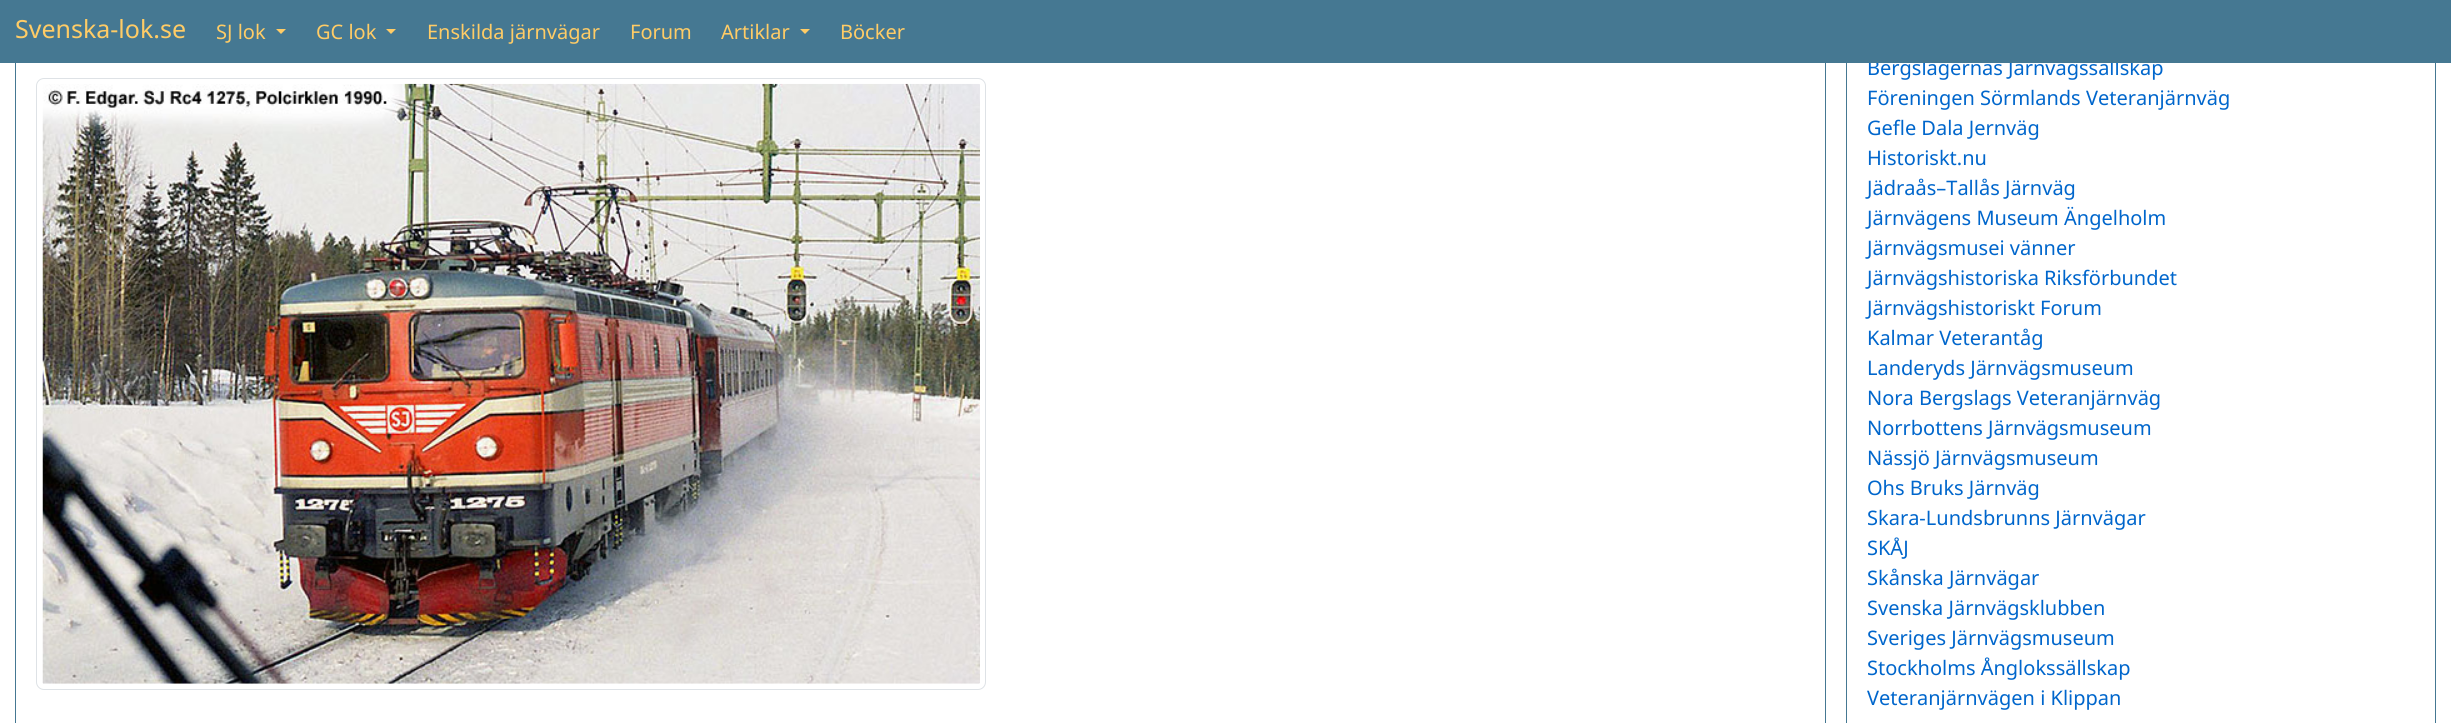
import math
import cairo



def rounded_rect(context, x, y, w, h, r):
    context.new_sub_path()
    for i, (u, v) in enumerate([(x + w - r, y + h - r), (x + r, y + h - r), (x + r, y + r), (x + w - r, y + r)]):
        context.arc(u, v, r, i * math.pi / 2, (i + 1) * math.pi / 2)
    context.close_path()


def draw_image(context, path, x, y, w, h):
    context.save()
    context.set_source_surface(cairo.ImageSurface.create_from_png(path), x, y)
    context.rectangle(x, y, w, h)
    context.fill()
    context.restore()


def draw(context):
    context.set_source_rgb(1, 1, 1)
    context.paint()
    context.rectangle(15.5, -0.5, 1810, 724)
    context.set_source_rgb(69 / 255, 120 / 255, 146 / 255)
    context.set_line_width(1)
    context.stroke()
    rounded_rect(context, 36.5, 78.5, 949, 611, 7.5)
    context.set_source_rgb(222 / 255, 226 / 255, 230 / 255)
    context.stroke()
    draw_image(context, "images/1.png", 42, 83, 938, 601)
    context.rectangle(1846.5, -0.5, 589, 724)
    context.set_source_rgb(69 / 255, 120 / 255, 146 / 255)
    context.stroke()
    context.select_font_face("Noto Sans")
    context.set_font_size(20)
    context.set_source_rgb(0, 102 / 255, 204 / 255)
    context.move_to(1867, 75)
    context.show_text("Bergslagernas Järnvägssällskap")
    context.set_source_rgb(69 / 255, 120 / 255, 146 / 255)
    context.rectangle(0, 0, 2451, 63)
    context.fill()
    context.set_source_rgb(1, 204 / 255, 102 / 255)
    context.new_path()
    context.move_to(800, 29)
    context.line_to(810, 29)
    context.line_to(805, 34)
    context.close_path()
    context.fill()
    context.move_to(721, 39)
    context.show_text("Artiklar")
    context.new_path()
    context.move_to(386, 29)
    context.line_to(396, 29)
    context.line_to(391, 34)
    context.close_path()
    context.fill()
    context.move_to(316, 39)
    context.show_text("GC lok")
    context.new_path()
    context.move_to(276, 29)
    context.line_to(286, 29)
    context.line_to(281, 34)
    context.close_path()
    context.fill()
    context.move_to(216, 39)
    context.show_text("SJ lok")
    context.move_to(840, 39)
    context.show_text("Böcker")
    context.move_to(630, 39)
    context.show_text("Forum")
    context.move_to(427, 39)
    context.show_text("Enskilda järnvägar")
    context.set_font_size(25)
    context.move_to(15, 38)
    context.show_text("Svenska-lok.se")
    context.set_font_size(20)
    context.set_source_rgb(0, 102 / 255, 204 / 255)
    context.move_to(1867, 105)
    context.show_text("Föreningen Sörmlands Veteranjärnväg")
    context.move_to(1867, 135)
    context.show_text("Gefle Dala Jernväg")
    context.move_to(1867, 165)
    context.show_text("Historiskt.nu")
    context.move_to(1867, 195)
    context.show_text("Jädraås–Tallås Järnväg")
    context.move_to(1867, 225)
    context.show_text("Järnvägens Museum Ängelholm")
    context.move_to(1867, 255)
    context.show_text("Järnvägsmusei vänner")
    context.move_to(1867, 285)
    context.show_text("Järnvägshistoriska Riksförbundet")
    context.move_to(1867, 315)
    context.show_text("Järnvägshistoriskt Forum")
    context.move_to(1867, 345)
    context.show_text("Kalmar Veterantåg")
    context.move_to(1867, 375)
    context.show_text("Landeryds Järnvägsmuseum")
    context.move_to(1867, 405)
    context.show_text("Nora Bergslags Veteranjärnväg")
    context.move_to(1867, 435)
    context.show_text("Norrbottens Järnvägsmuseum")
    context.move_to(1867, 465)
    context.show_text("Nässjö Järnvägsmuseum")
    context.move_to(1867, 495)
    context.show_text("Ohs Bruks Järnväg")
    context.move_to(1867, 525)
    context.show_text("Skara-Lundsbrunns Järnvägar")
    context.move_to(1867, 555)
    context.show_text("SKÅJ")
    context.move_to(1867, 585)
    context.show_text("Skånska Järnvägar")
    context.move_to(1867, 615)
    context.show_text("Svenska Järnvägsklubben")
    context.move_to(1867, 645)
    context.show_text("Sveriges Järnvägsmuseum")
    context.move_to(1867, 675)
    context.show_text("Stockholms Ånglokssällskap")
    context.move_to(1867, 705)
    context.show_text("Veteranjärnvägen i Klippan")


surface = cairo.ImageSurface(cairo.Format.RGB24, 2451, 723)
context = cairo.Context(surface)
options = cairo.FontOptions()
options.set_hint_metrics(cairo.HintMetrics.OFF)
options.set_hint_style(cairo.HintStyle.NONE)
context.set_font_options(options)
context.set_miter_limit(4)
draw(context)
surface.write_to_png("out.png")
